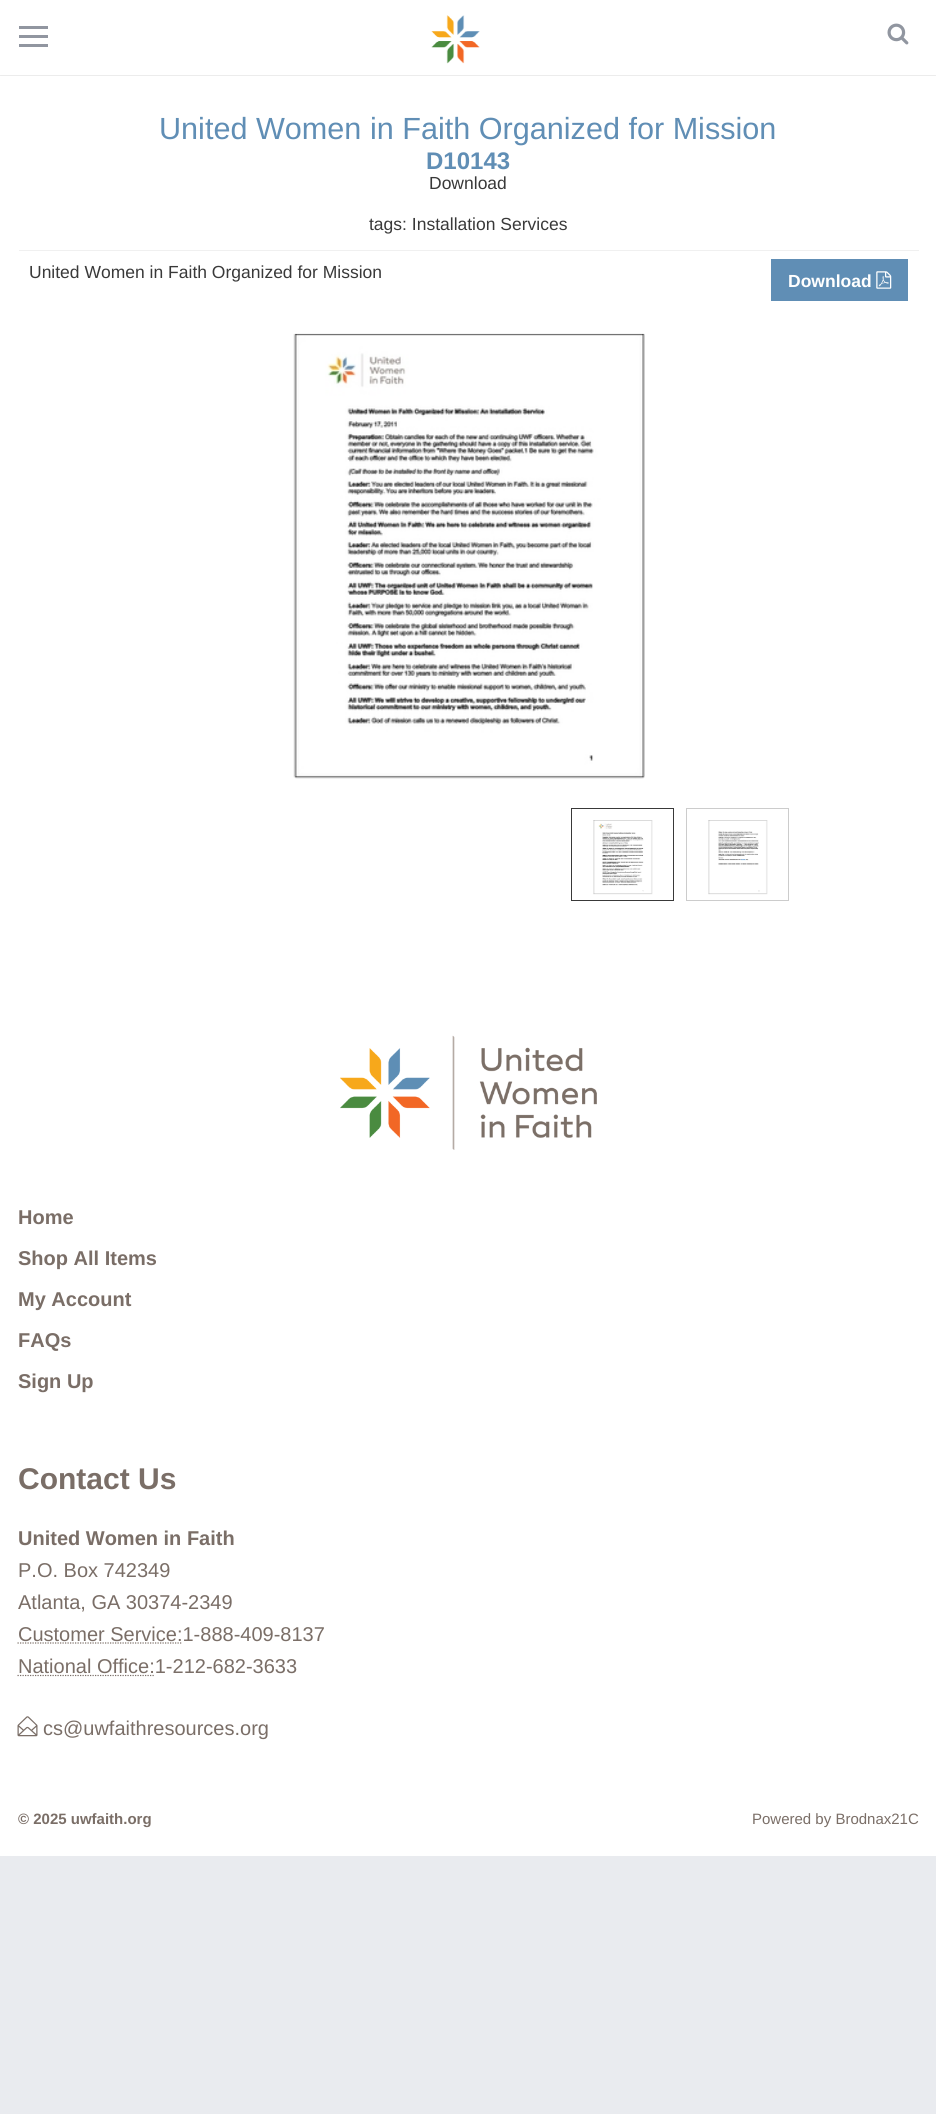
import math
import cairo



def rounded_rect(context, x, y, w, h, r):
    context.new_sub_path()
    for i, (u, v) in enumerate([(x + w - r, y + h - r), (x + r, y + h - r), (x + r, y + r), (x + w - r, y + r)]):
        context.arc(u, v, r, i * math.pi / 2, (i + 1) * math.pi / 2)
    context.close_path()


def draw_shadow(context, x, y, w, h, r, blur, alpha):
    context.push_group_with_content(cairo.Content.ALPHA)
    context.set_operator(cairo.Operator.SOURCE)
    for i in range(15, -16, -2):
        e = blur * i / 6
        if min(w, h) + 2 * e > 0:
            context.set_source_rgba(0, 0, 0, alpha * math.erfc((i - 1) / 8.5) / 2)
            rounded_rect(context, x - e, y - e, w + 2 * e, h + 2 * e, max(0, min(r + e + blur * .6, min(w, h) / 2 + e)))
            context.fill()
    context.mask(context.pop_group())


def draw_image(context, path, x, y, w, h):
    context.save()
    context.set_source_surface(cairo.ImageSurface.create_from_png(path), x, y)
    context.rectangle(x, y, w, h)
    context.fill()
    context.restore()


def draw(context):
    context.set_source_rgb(233 / 255, 235 / 255, 239 / 255)
    context.paint()
    context.set_source_rgb(1, 1, 1)
    context.rectangle(0, 75, 936, 1781)
    context.fill()
    context.set_source_rgb(0, 0, 0)
    draw_shadow(context, 0, 0, 936, 75, 0, 0.5, 0.3)
    context.set_source_rgb(1, 1, 1)
    context.rectangle(0, 0, 936, 75)
    context.fill()
    context.set_source_rgb(145 / 255, 150 / 255, 160 / 255)
    context.rectangle(19, 35, 29, 3)
    context.fill()
    context.rectangle(19, 26, 29, 3)
    context.fill()
    context.rectangle(19, 44, 29, 3)
    context.fill()
    draw_image(context, "images/1.png", 431, 15, 49, 49)
    draw_image(context, "images/2.png", 887, 23, 22, 22)
    context.set_source_rgb(240 / 255, 240 / 255, 240 / 255)
    context.rectangle(19, 250, 900, 1)
    context.fill()
    context.set_source_rgb(96 / 255, 142 / 255, 181 / 255)
    context.rectangle(771, 259, 137, 42)
    context.fill()
    draw_image(context, "images/3.png", 876, 271, 16, 18)
    draw_image(context, "images/4.png", 293, 333, 352, 446)
    context.rectangle(571.5, 808.5, 102, 92)
    context.set_source_rgb(57 / 255, 57 / 255, 57 / 255)
    context.set_line_width(1)
    context.stroke()
    draw_image(context, "images/5.png", 593, 820, 60, 75)
    context.rectangle(686.5, 808.5, 102, 92)
    context.set_source_rgb(204 / 255, 204 / 255, 204 / 255)
    context.stroke()
    draw_image(context, "images/6.png", 708, 820, 60, 75)
    draw_image(context, "images/7.png", 340, 1035, 257, 115)
    context.new_path()
    context.move_to(17.5, 1643)
    context.line_to(182, 1643)
    context.set_source_rgb(122 / 255, 110 / 255, 103 / 255)
    context.set_line_width(1.2)
    context.set_dash([1.25, 1.25])
    context.stroke()
    context.new_path()
    context.move_to(17.5, 1675.5)
    context.line_to(154, 1675.5)
    context.stroke()
    draw_image(context, "images/8.png", 17, 1716, 21, 21)
    context.select_font_face("Liberation Sans")
    context.set_font_size(30.6)
    context.set_source_rgb(96 / 255, 142 / 255, 181 / 255)
    context.move_to(159, 139)
    context.show_text("United Women in Faith Organized for Mission")
    context.select_font_face("Liberation Sans", cairo.FontSlant.NORMAL, cairo.FontWeight.BOLD)
    context.set_font_size(24)
    context.move_to(426, 169)
    context.show_text("D10143")
    context.select_font_face("Liberation Sans")
    context.set_font_size(17.5)
    context.set_source_rgb(57 / 255, 57 / 255, 57 / 255)
    context.move_to(429, 189)
    context.show_text("Download")
    context.move_to(369, 230)
    context.show_text("tags: Installation Services")
    context.move_to(29, 278)
    context.show_text("United Women in Faith Organized for Mission")
    context.select_font_face("Liberation Sans", cairo.FontSlant.NORMAL, cairo.FontWeight.BOLD)
    context.set_source_rgb(1, 1, 1)
    context.move_to(788, 287)
    context.show_text("Download")
    context.set_font_size(20)
    context.set_source_rgb(122 / 255, 110 / 255, 103 / 255)
    context.move_to(18, 1224)
    context.show_text("Home")
    context.move_to(18, 1265)
    context.show_text("Shop All Items")
    context.move_to(18, 1306)
    context.show_text("My Account")
    context.move_to(18, 1347)
    context.show_text("FAQs")
    context.move_to(18, 1388)
    context.show_text("Sign Up")
    context.set_font_size(30)
    context.move_to(18, 1489)
    context.show_text("Contact Us")
    context.set_font_size(20)
    context.move_to(18, 1545)
    context.show_text("United Women in Faith")
    context.select_font_face("Liberation Sans")
    context.move_to(18, 1577)
    context.show_text("P.O. Box 742349")
    context.move_to(18, 1609)
    context.show_text("Atlanta, GA 30374-2349")
    context.move_to(18, 1641)
    context.show_text("Customer Service:1-888-409-8137")
    context.move_to(18, 1673)
    context.show_text("National Office:1-212-682-3633")
    context.move_to(43, 1735)
    context.show_text("cs@uwfaithresources.org")
    context.select_font_face("Liberation Sans", cairo.FontSlant.NORMAL, cairo.FontWeight.BOLD)
    context.set_font_size(15)
    context.move_to(18, 1824)
    context.show_text("© 2025 uwfaith.org")
    context.select_font_face("Liberation Sans")
    context.move_to(752, 1824)
    context.show_text("Powered by Brodnax21C")


surface = cairo.ImageSurface(cairo.Format.RGB24, 936, 2114)
context = cairo.Context(surface)
options = cairo.FontOptions()
options.set_hint_metrics(cairo.HintMetrics.OFF)
options.set_hint_style(cairo.HintStyle.NONE)
context.set_font_options(options)
context.set_miter_limit(4)
draw(context)
surface.write_to_png("out.png")
